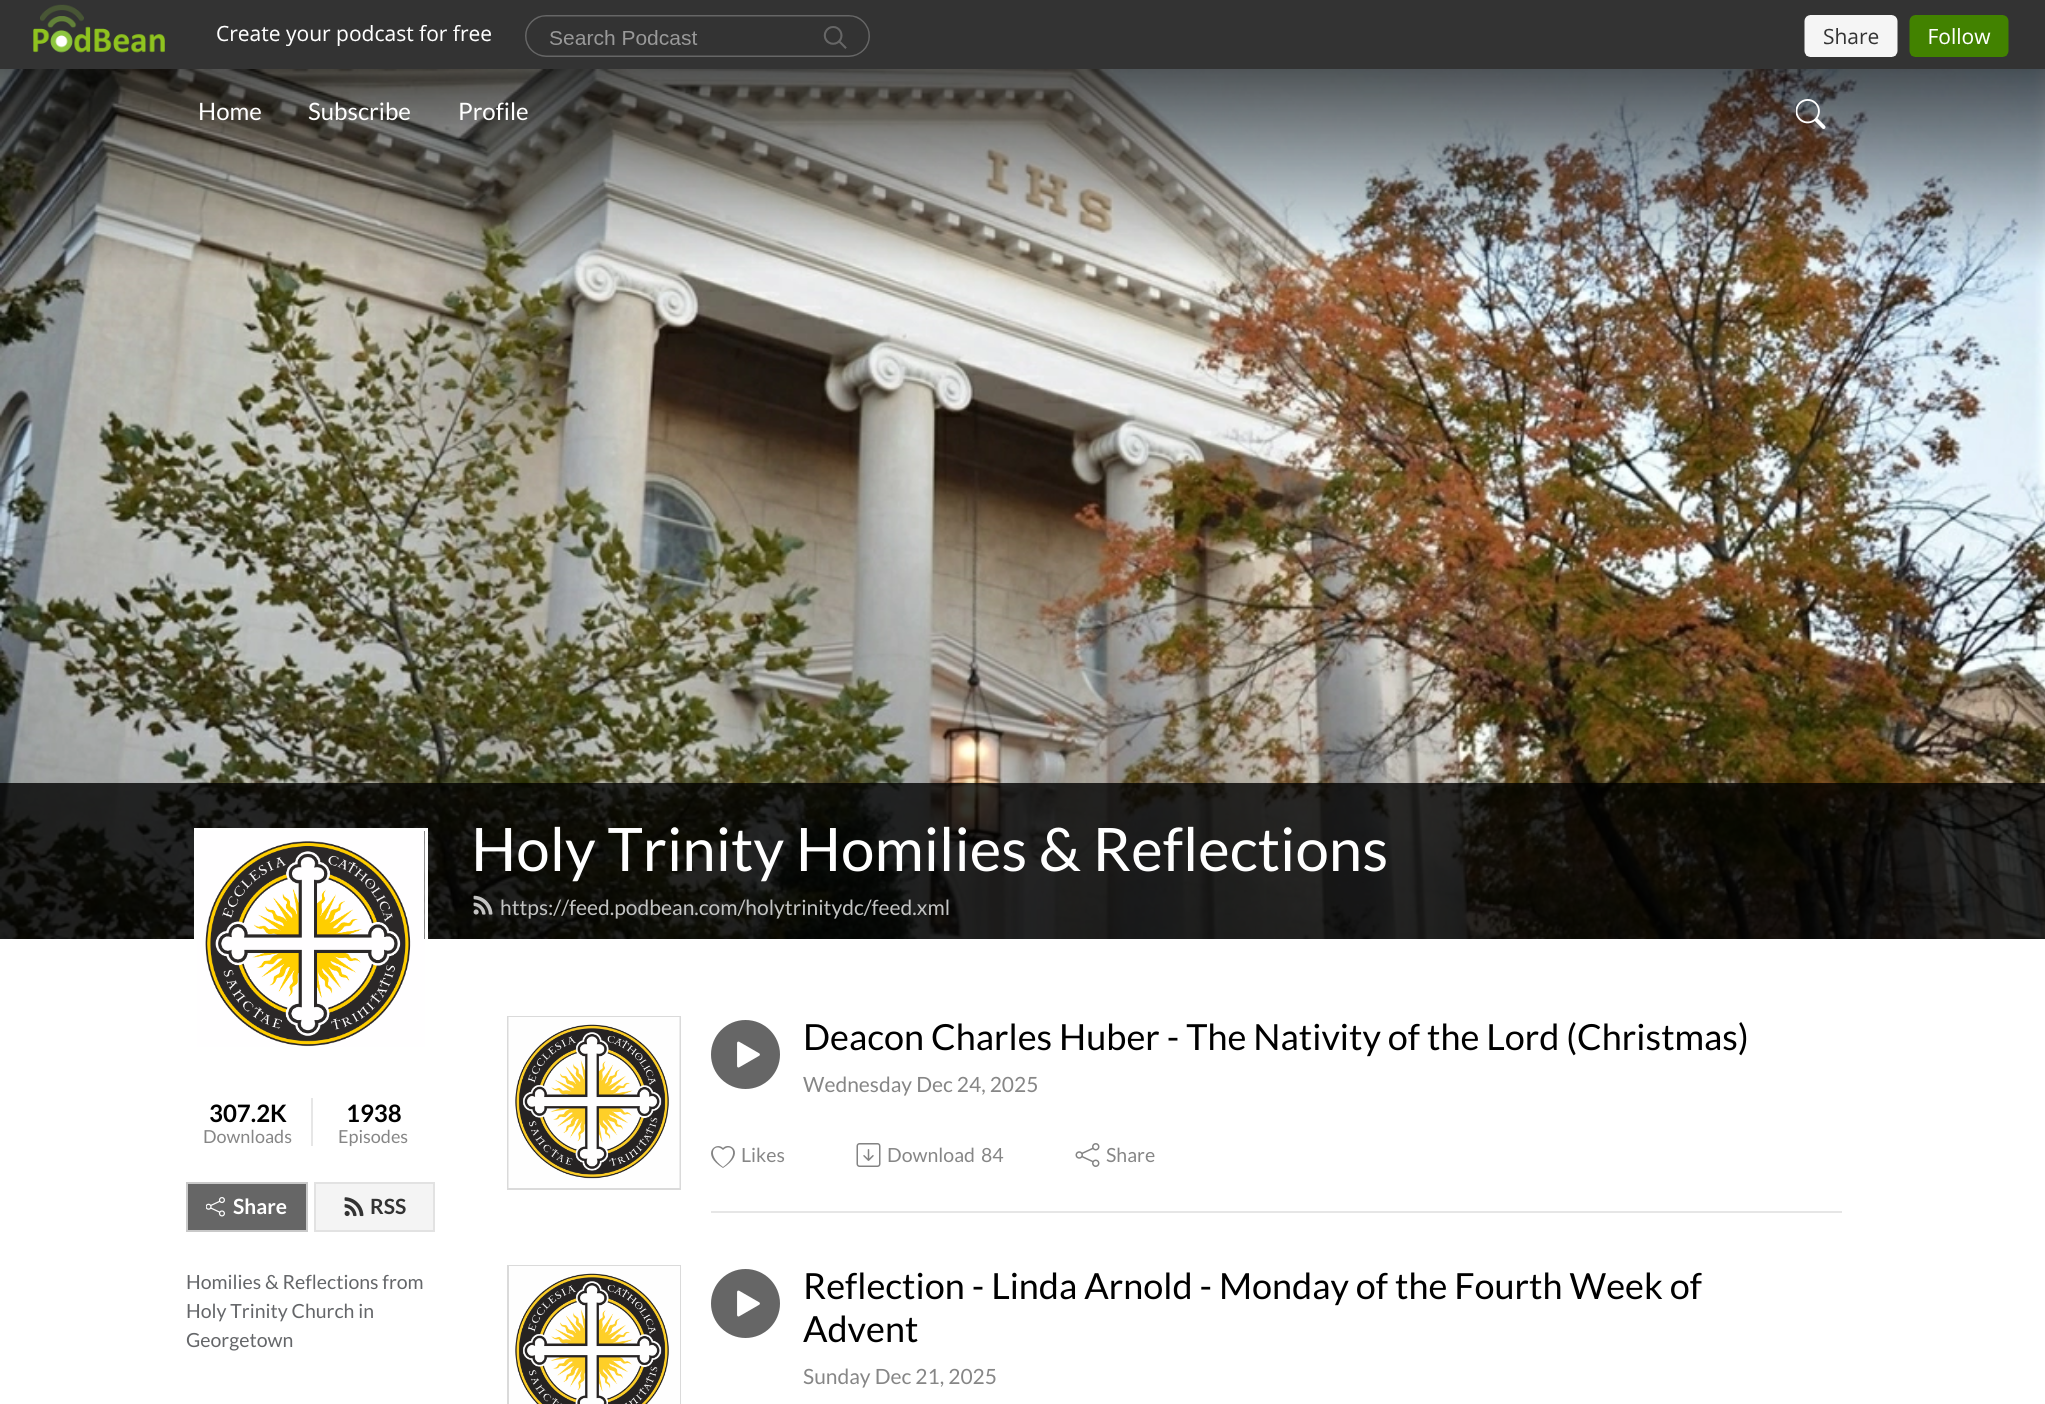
import math
import cairo



def draw_image(context, path, x, y, w, h):
    context.save()
    context.set_source_surface(cairo.ImageSurface.create_from_png(path), x, y)
    context.rectangle(x, y, w, h)
    context.fill()
    context.restore()


def draw(context):
    context.set_source_rgb(1, 1, 1)
    context.paint()
    context.set_source_rgb(51 / 255, 51 / 255, 51 / 255)
    context.rectangle(0, 0, 2045, 69)
    context.fill()
    draw_image(context, "images/1.png", 33, 4, 1976, 53)
    draw_image(context, "images/3.png", 0, 69, 2045, 870)
    draw_image(context, "images/2.png", 1796, 99, 30, 30)
    context.set_source_rgba(0, 0, 0, 0.8)
    context.rectangle(0, 783, 2045, 156)
    context.fill()
    draw_image(context, "images/4.png", 473, 895, 20, 20)
    context.rectangle(195.5, 829.5, 231, 231)
    context.set_source_rgb(1, 1, 1)
    context.set_line_width(3)
    context.stroke()
    draw_image(context, "images/5.png", 197, 831, 228, 216)
    context.set_source_rgb(230 / 255, 230 / 255, 230 / 255)
    context.rectangle(311, 1098, 2, 48)
    context.fill()
    context.set_source_rgb(102 / 255, 102 / 255, 102 / 255)
    context.rectangle(187, 1183, 120, 48)
    context.fill_preserve()
    context.set_source_rgb(201 / 255, 201 / 255, 201 / 255)
    context.set_line_width(2)
    context.stroke()
    draw_image(context, "images/6.png", 206, 1197, 19, 20)
    context.set_source_rgb(244 / 255, 244 / 255, 244 / 255)
    context.rectangle(315, 1183, 119, 48)
    context.fill_preserve()
    context.set_source_rgb(226 / 255, 226 / 255, 226 / 255)
    context.stroke()
    draw_image(context, "images/7.png", 344, 1197, 20, 20)
    context.rectangle(508, 1017, 172, 172)
    context.set_source_rgb(218 / 255, 218 / 255, 218 / 255)
    context.stroke()
    draw_image(context, "images/8.png", 508, 1017, 172, 171)
    context.set_source_rgb(230 / 255, 230 / 255, 230 / 255)
    context.rectangle(711, 1211, 1131, 2)
    context.fill()
    context.set_source_rgb(102 / 255, 102 / 255, 102 / 255)
    context.arc(745.5, 1054.5, 34.5, 0, 2 * math.pi)
    context.fill()
    draw_image(context, "images/9.png", 737, 1041, 23, 27)
    context.set_source_rgb(131 / 255, 131 / 255, 131 / 255)
    context.new_path()
    context.move_to(723, 1150)
    context.curve_to(715, 1142, 705, 1154, 723, 1167)
    context.curve_to(741, 1154, 731, 1142, 723, 1150)
    context.close_path()
    context.move_to(723, 1168)
    context.curve_to(700, 1154, 716, 1141, 723, 1148)
    context.curve_to(730, 1141, 746, 1153, 723, 1168)
    context.close_path()
    context.fill()
    draw_image(context, "images/10.png", 856, 1143, 25, 24)
    draw_image(context, "images/11.png", 1075, 1143, 25, 24)
    context.rectangle(508, 1266, 172, 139)
    context.set_source_rgb(218 / 255, 218 / 255, 218 / 255)
    context.stroke()
    draw_image(context, "images/12.png", 509, 1266, 171, 138)
    context.set_source_rgb(102 / 255, 102 / 255, 102 / 255)
    context.arc(745.5, 1303.5, 34.5, 0, 2 * math.pi)
    context.fill()
    draw_image(context, "images/9.png", 737, 1290, 23, 27)
    context.select_font_face("Lato")
    context.set_font_size(24)
    context.set_source_rgb(1, 1, 1)
    context.move_to(198, 120)
    context.show_text("Home")
    context.move_to(308, 120)
    context.show_text("Subscribe")
    context.move_to(458, 120)
    context.show_text("Profile")
    context.set_font_size(60)
    context.move_to(471, 871)
    context.show_text("Holy Trinity Homilies & Reflections")
    context.set_font_size(21)
    context.set_source_rgb(195 / 255, 196 / 255, 195 / 255)
    context.move_to(500, 915)
    context.show_text("https://feed.podbean.com/holytrinitydc/feed.xml")
    context.select_font_face("Lato", cairo.FontSlant.NORMAL, cairo.FontWeight.BOLD)
    context.set_font_size(24)
    context.set_source_rgb(0, 0, 0)
    context.move_to(209, 1122)
    context.show_text("307.2K")
    context.select_font_face("Lato")
    context.set_font_size(18)
    context.set_source_rgb(134 / 255, 134 / 255, 134 / 255)
    context.move_to(203, 1143)
    context.show_text("Downloads")
    context.select_font_face("Lato", cairo.FontSlant.NORMAL, cairo.FontWeight.BOLD)
    context.set_font_size(24)
    context.set_source_rgb(0, 0, 0)
    context.move_to(346, 1122)
    context.show_text("1938")
    context.select_font_face("Lato")
    context.set_font_size(18)
    context.set_source_rgb(134 / 255, 134 / 255, 134 / 255)
    context.move_to(338, 1143)
    context.show_text("Episodes")
    context.select_font_face("Lato", cairo.FontSlant.NORMAL, cairo.FontWeight.BOLD)
    context.set_font_size(21)
    context.set_source_rgb(1, 1, 1)
    context.move_to(233, 1214)
    context.show_text("Share")
    context.set_source_rgb(51 / 255, 51 / 255, 51 / 255)
    context.move_to(370, 1214)
    context.show_text("RSS")
    context.select_font_face("Lato")
    context.set_font_size(19.5)
    context.set_source_rgb(100 / 255, 102 / 255, 105 / 255)
    context.move_to(186, 1289)
    context.show_text("Homilies & Reflections from")
    context.move_to(186, 1318)
    context.show_text("Holy Trinity Church in")
    context.move_to(186, 1347)
    context.show_text("Georgetown")
    context.set_font_size(36)
    context.set_source_rgb(0, 0, 0)
    context.move_to(803, 1050)
    context.show_text("Deacon Charles Huber - The Nativity of the Lord (Christmas)")
    context.set_font_size(21)
    context.set_source_rgb(134 / 255, 134 / 255, 134 / 255)
    context.move_to(803, 1092)
    context.show_text("Wednesday Dec 24, 2025")
    context.set_font_size(19.5)
    context.move_to(741, 1162)
    context.show_text("Likes")
    context.move_to(887, 1162)
    context.show_text("Download")
    context.move_to(981, 1162)
    context.show_text("84")
    context.move_to(1106, 1162)
    context.show_text("Share")
    context.set_font_size(36)
    context.set_source_rgb(0, 0, 0)
    context.move_to(803, 1299)
    context.show_text("Reflection - Linda Arnold - Monday of the Fourth Week of")
    context.move_to(803, 1342)
    context.show_text("Advent")
    context.set_font_size(21)
    context.set_source_rgb(134 / 255, 134 / 255, 134 / 255)
    context.move_to(803, 1384)
    context.show_text("Sunday Dec 21, 2025")


surface = cairo.ImageSurface(cairo.Format.RGB24, 2045, 1404)
context = cairo.Context(surface)
options = cairo.FontOptions()
options.set_hint_metrics(cairo.HintMetrics.OFF)
options.set_hint_style(cairo.HintStyle.NONE)
context.set_font_options(options)
context.set_miter_limit(4)
draw(context)
surface.write_to_png("out.png")
